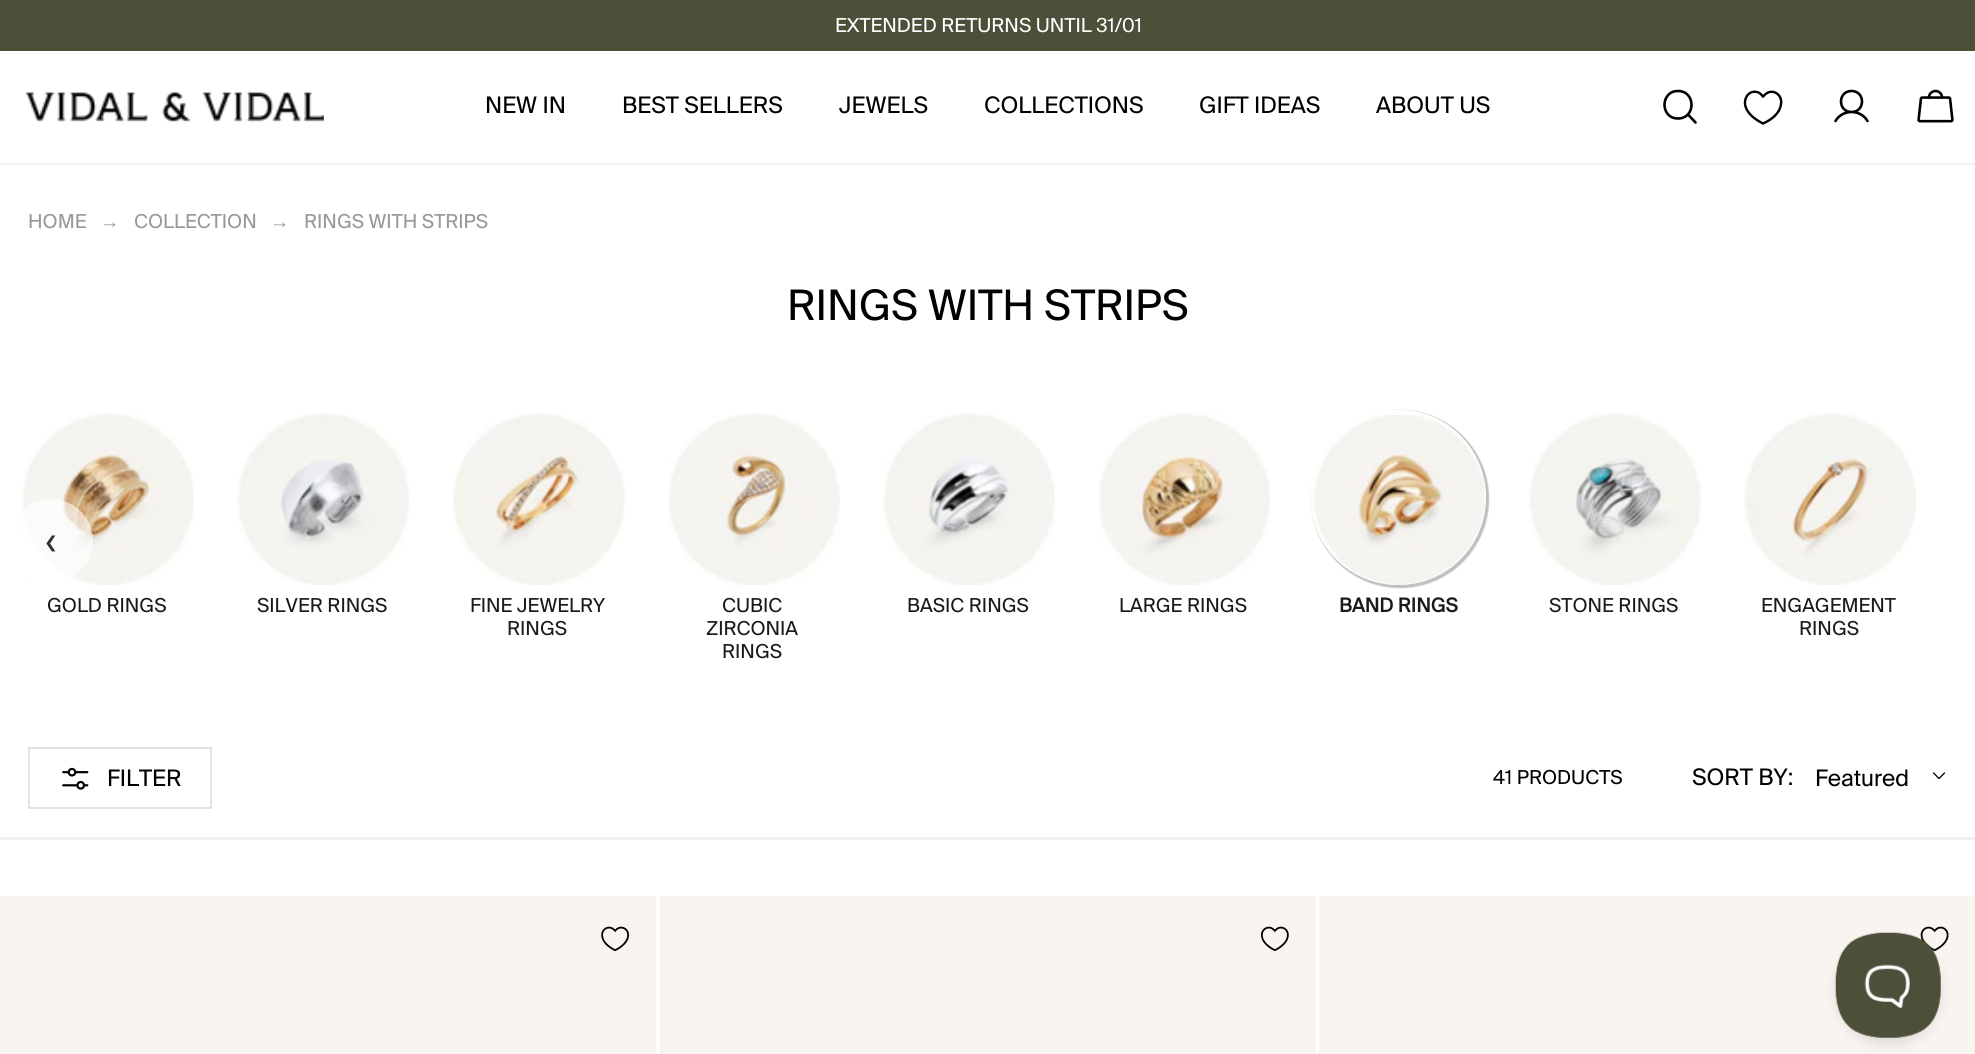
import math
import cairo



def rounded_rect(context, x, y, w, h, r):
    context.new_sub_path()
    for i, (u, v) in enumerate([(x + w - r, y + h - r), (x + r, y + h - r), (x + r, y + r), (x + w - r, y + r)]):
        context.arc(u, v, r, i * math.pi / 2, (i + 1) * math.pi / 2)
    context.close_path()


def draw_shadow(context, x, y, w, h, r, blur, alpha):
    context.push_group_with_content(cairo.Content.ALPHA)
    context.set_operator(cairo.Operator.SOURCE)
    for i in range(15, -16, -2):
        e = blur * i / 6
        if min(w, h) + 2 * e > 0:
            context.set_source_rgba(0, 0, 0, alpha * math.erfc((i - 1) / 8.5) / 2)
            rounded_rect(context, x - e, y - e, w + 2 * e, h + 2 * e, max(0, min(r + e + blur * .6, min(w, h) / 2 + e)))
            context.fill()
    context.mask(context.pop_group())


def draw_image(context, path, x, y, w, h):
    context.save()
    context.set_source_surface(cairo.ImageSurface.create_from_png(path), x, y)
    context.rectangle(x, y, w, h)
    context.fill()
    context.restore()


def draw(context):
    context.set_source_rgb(1, 1, 1)
    context.paint()
    context.set_source_rgb(77 / 255, 80 / 255, 57 / 255)
    context.rectangle(0, 0, 1975, 51)
    context.fill()
    context.set_source_rgb(241 / 255, 241 / 255, 241 / 255)
    context.rectangle(0, 163, 1975, 2)
    context.fill()
    draw_image(context, "images/1.png", 26, 91, 298, 32)
    context.new_path()
    context.move_to(1678, 118.5)
    context.curve_to(1696, 118.5, 1696, 91, 1678, 91)
    context.curve_to(1660, 91, 1660, 118.5, 1678, 118.5)
    context.close_path()
    context.move_to(1688, 114.5)
    context.line_to(1695.5, 122.5)
    context.set_source_rgb(0, 0, 0)
    context.set_line_width(2.6)
    context.set_line_cap(cairo.LineCap.ROUND)
    context.set_line_join(cairo.LineJoin.ROUND)
    context.stroke()
    context.new_path()
    context.move_to(1763, 123.5)
    context.curve_to(1756, 120, 1748, 114.5, 1745.5, 106.5)
    context.curve_to(1743, 98, 1749.5, 89, 1758.5, 92.5)
    context.curve_to(1760.5, 93.5, 1761.5, 95, 1763, 96.5)
    context.curve_to(1764.5, 95, 1766, 93.5, 1768, 92.5)
    context.curve_to(1775.5, 89.5, 1782.5, 96.5, 1781, 104)
    context.curve_to(1780, 113.5, 1771, 120, 1763, 123.5)
    context.close_path()
    context.set_line_width(2.4)
    context.set_line_cap(cairo.LineCap.BUTT)
    context.set_line_join(cairo.LineJoin.MITER)
    context.stroke()
    context.new_path()
    context.move_to(1851.5, 112)
    context.curve_to(1865.5, 112, 1865.5, 91, 1851.5, 91)
    context.curve_to(1837.5, 91, 1837.5, 112, 1851.5, 112)
    context.close_path()
    context.move_to(1835.5, 121)
    context.curve_to(1842.5, 109, 1860.5, 109, 1867.5, 121)
    context.set_line_width(2.6)
    context.set_line_cap(cairo.LineCap.ROUND)
    context.set_line_join(cairo.LineJoin.ROUND)
    context.stroke()
    draw_image(context, "images/2.png", 1917, 89, 37, 34)
    draw_image(context, "images/3.png", 22, 413, 172, 172)
    context.set_source_rgba(1, 1, 1, 0.6)
    context.arc(51, 541, 42, 0, 2 * math.pi)
    context.fill()
    draw_image(context, "images/4.png", 237, 413, 172, 172)
    draw_image(context, "images/5.png", 453, 413, 172, 172)
    draw_image(context, "images/6.png", 668, 413, 172, 172)
    draw_image(context, "images/7.png", 883, 413, 172, 172)
    draw_image(context, "images/8.png", 1099, 410, 171, 175)
    context.save()
    context.set_fill_rule(cairo.FillRule.EVEN_ODD)
    context.new_path()
    context.move_to(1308, 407)
    context.line_to(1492, 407)
    context.line_to(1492, 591)
    context.line_to(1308, 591)
    context.close_path()
    context.move_to(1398.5, 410)
    context.curve_to(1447, 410, 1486, 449, 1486, 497.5)
    context.curve_to(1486, 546, 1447, 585, 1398.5, 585)
    context.curve_to(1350, 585, 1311, 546, 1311, 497.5)
    context.curve_to(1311, 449, 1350, 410, 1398.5, 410)
    context.close_path()
    context.clip()
    context.set_source_rgb(0, 0, 0)
    draw_shadow(context, 1311, 410, 178, 178, 89, 0.5, 0.25)
    context.restore()
    draw_image(context, "images/9.png", 1311, 414, 174, 171)
    draw_image(context, "images/10.png", 1529, 413, 172, 172)
    draw_image(context, "images/11.png", 1744, 413, 172, 172)
    context.rectangle(29, 748, 182, 60)
    context.set_source_rgb(226 / 255, 226 / 255, 226 / 255)
    context.set_line_width(2)
    context.set_line_cap(cairo.LineCap.BUTT)
    context.set_line_join(cairo.LineJoin.MITER)
    context.stroke()
    draw_image(context, "images/12.png", 62, 767, 27, 23)
    context.new_path()
    context.move_to(1944.5, 773)
    context.line_to(1939, 778.5)
    context.line_to(1933.5, 773)
    context.set_source_rgb(0, 0, 0)
    context.set_line_width(1.3)
    context.set_line_cap(cairo.LineCap.ROUND)
    context.set_line_join(cairo.LineJoin.ROUND)
    context.stroke()
    context.set_source_rgb(241 / 255, 241 / 255, 241 / 255)
    context.rectangle(0, 837, 1975, 3)
    context.fill()
    context.set_source_rgb(248 / 255, 244 / 255, 240 / 255)
    context.rectangle(0, 896, 656, 158)
    context.fill()
    draw_image(context, "images/13.png", 601, 926, 28, 26)
    context.rectangle(660, 896, 656, 158)
    context.fill()
    draw_image(context, "images/14.png", 1261, 926, 28, 26)
    context.rectangle(1319, 896, 656, 158)
    context.fill()
    draw_image(context, "images/15.png", 1920, 926, 29, 26)
    context.set_source_rgb(0, 0, 0)
    draw_shadow(context, 1836, 940, 105, 105, 52.5, 6, 0.1)
    draw_image(context, "images/16.png", 1835, 932, 106, 106)
    context.select_font_face("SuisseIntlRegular")
    context.set_font_size(19.25)
    context.set_source_rgb(1, 1, 1)
    context.move_to(835, 32)
    context.show_text("EXTENDED RETURNS UNTIL 31/01")
    context.set_font_size(22.75)
    context.set_source_rgb(0, 0, 0)
    context.move_to(485, 113)
    context.show_text("NEW IN")
    context.move_to(622, 113)
    context.show_text("BEST SELLERS")
    context.move_to(839, 113)
    context.show_text("JEWELS")
    context.move_to(984, 113)
    context.show_text("COLLECTIONS")
    context.move_to(1199, 113)
    context.show_text("GIFT IDEAS")
    context.move_to(1376, 113)
    context.show_text("ABOUT US")
    context.set_font_size(19.25)
    context.set_source_rgb(152 / 255, 152 / 255, 152 / 255)
    context.move_to(28, 228)
    context.show_text("HOME")
    context.select_font_face("Liberation Sans")
    context.move_to(100, 228)
    context.show_text("→")
    context.select_font_face("SuisseIntlRegular")
    context.move_to(134, 228)
    context.show_text("COLLECTION")
    context.select_font_face("Liberation Sans")
    context.move_to(270, 228)
    context.show_text("→")
    context.select_font_face("SuisseIntlRegular")
    context.move_to(304, 228)
    context.show_text("RINGS WITH STRIPS")
    context.set_font_size(42)
    context.set_source_rgb(0, 0, 0)
    context.move_to(787, 320)
    context.show_text("RINGS WITH STRIPS")
    context.set_font_size(35)
    context.set_source_rgb(51 / 255, 51 / 255, 51 / 255)
    context.move_to(46, 553)
    context.show_text("‹")
    context.set_font_size(19.25)
    context.set_source_rgb(27 / 255, 26 / 255, 26 / 255)
    context.move_to(47, 612)
    context.show_text("GOLD RINGS")
    context.move_to(257, 612)
    context.show_text("SILVER RINGS")
    context.move_to(470, 612)
    context.show_text("FINE JEWELRY")
    context.move_to(507, 635)
    context.show_text("RINGS")
    context.move_to(722, 612)
    context.show_text("CUBIC")
    context.move_to(706, 635)
    context.show_text("ZIRCONIA")
    context.move_to(722, 658)
    context.show_text("RINGS")
    context.move_to(907, 612)
    context.show_text("BASIC RINGS")
    context.move_to(1119, 612)
    context.show_text("LARGE RINGS")
    context.select_font_face("SuisseIntlRegular", cairo.FontSlant.NORMAL, cairo.FontWeight.BOLD)
    context.move_to(1339, 612)
    context.show_text("BAND RINGS")
    context.select_font_face("SuisseIntlRegular")
    context.move_to(1549, 612)
    context.show_text("STONE RINGS")
    context.move_to(1761, 612)
    context.show_text("ENGAGEMENT")
    context.move_to(1799, 635)
    context.show_text("RINGS")
    context.set_font_size(22.75)
    context.set_source_rgb(0, 0, 0)
    context.move_to(107, 786)
    context.show_text("FILTER")
    context.set_font_size(19.25)
    context.move_to(1493, 784)
    context.show_text("41 PRODUCTS")
    context.set_font_size(22.75)
    context.move_to(1692, 785)
    context.show_text("SORT BY:")
    context.move_to(1815, 786)
    context.show_text("Featured")


surface = cairo.ImageSurface(cairo.Format.RGB24, 1975, 1054)
context = cairo.Context(surface)
options = cairo.FontOptions()
options.set_hint_metrics(cairo.HintMetrics.OFF)
options.set_hint_style(cairo.HintStyle.NONE)
context.set_font_options(options)
context.set_miter_limit(4)
draw(context)
surface.write_to_png("out.png")
